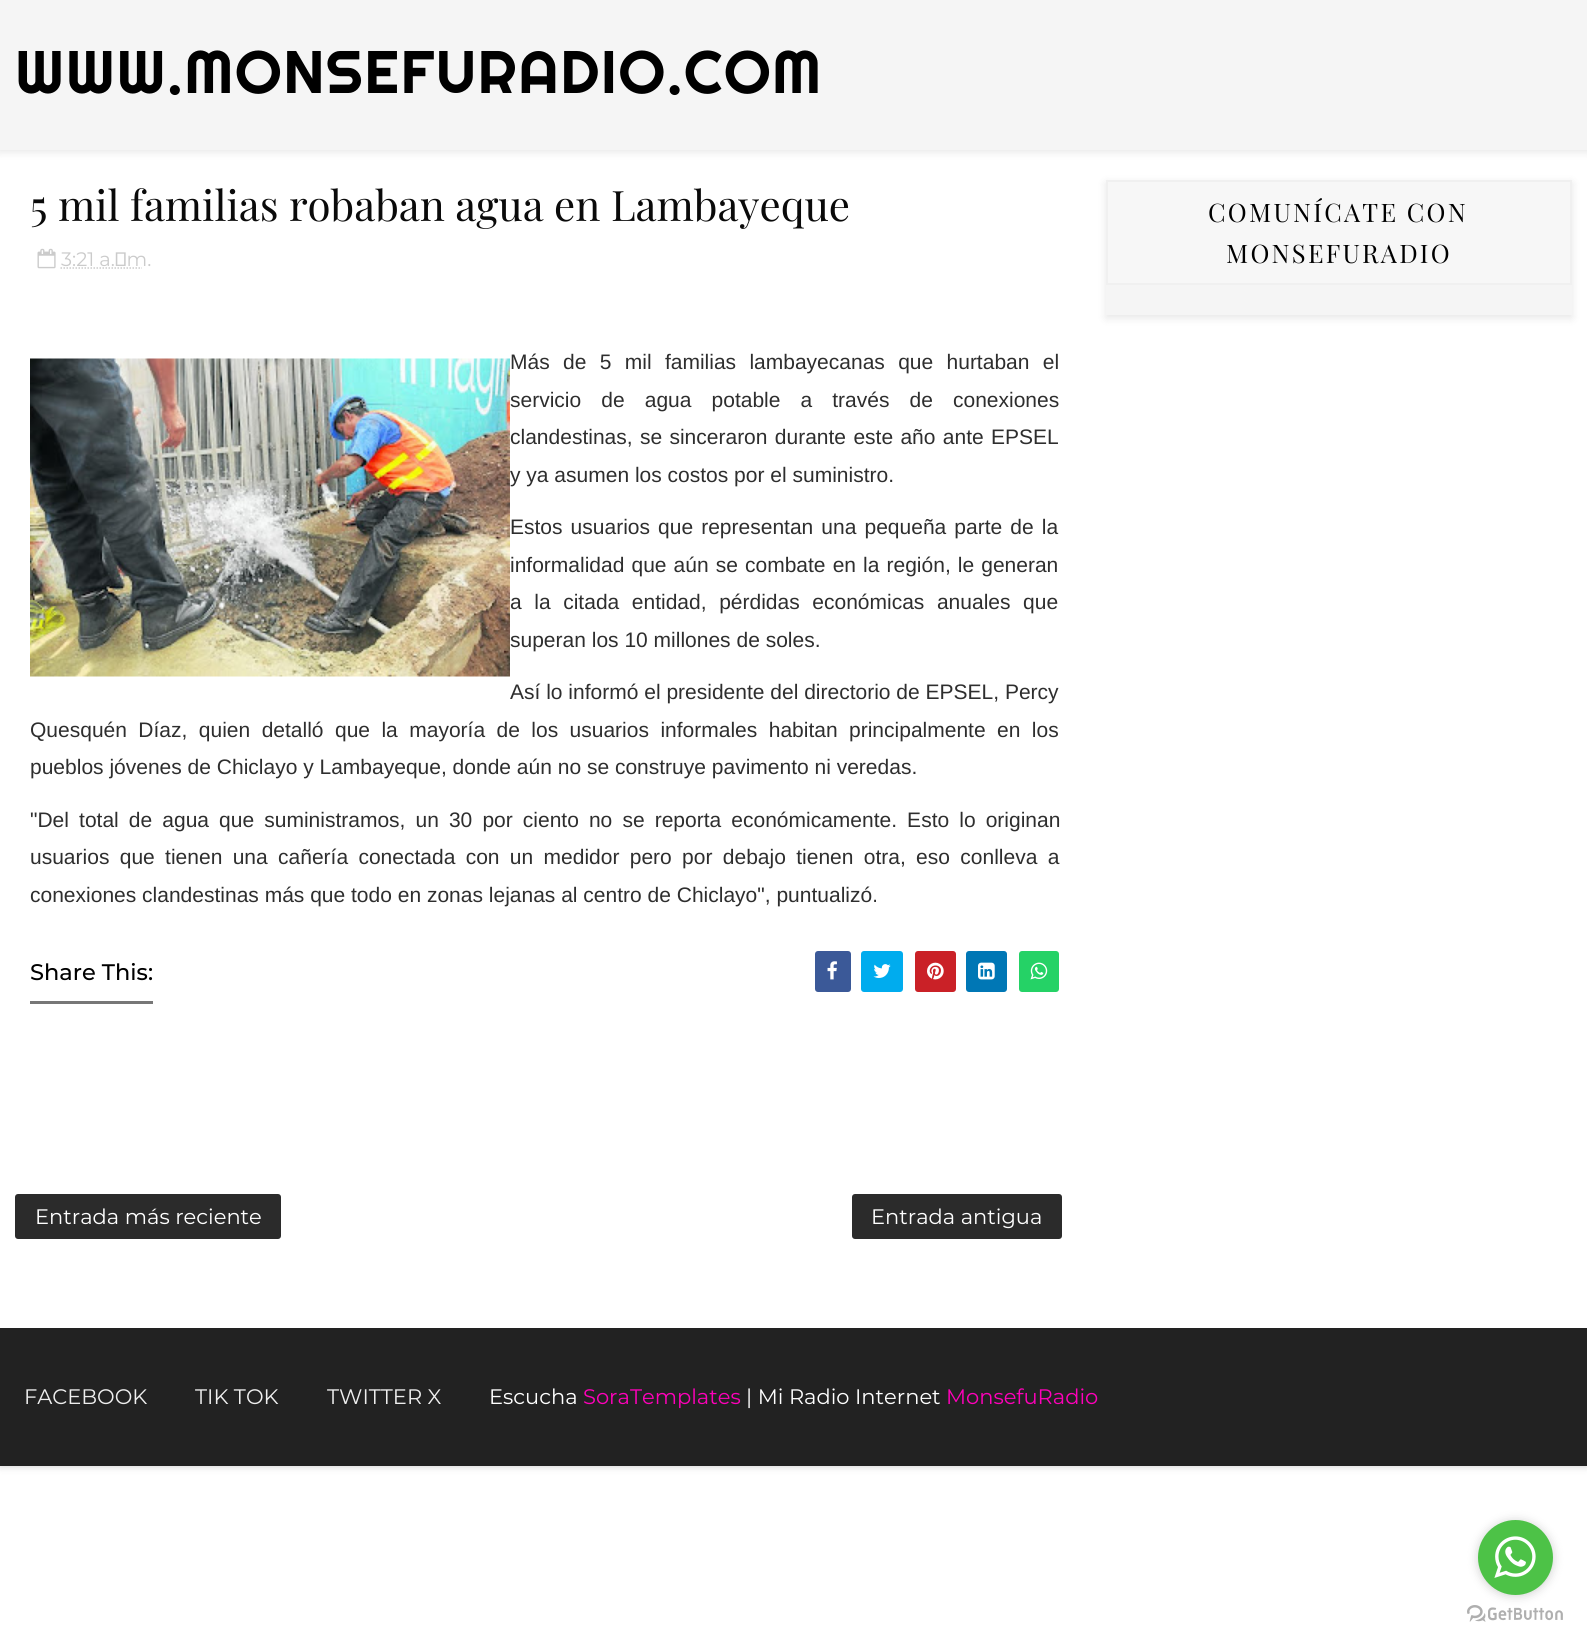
import math
import cairo



def draw_spaced(context, x, y, s, letter, word):
    context.move_to(x, y)
    for ch in s:
        context.show_text(ch)
        context.rel_move_to(letter + word * (ch == ' '), 0)


def rounded_rect(context, x, y, w, h, r):
    context.new_sub_path()
    for i, (u, v) in enumerate([(x + w - r, y + h - r), (x + r, y + h - r), (x + r, y + r), (x + w - r, y + r)]):
        context.arc(u, v, r, i * math.pi / 2, (i + 1) * math.pi / 2)
    context.close_path()


def draw_shadow(context, x, y, w, h, r, blur, alpha):
    context.push_group_with_content(cairo.Content.ALPHA)
    context.set_operator(cairo.Operator.SOURCE)
    for i in range(15, -16, -2):
        e = blur * i / 6
        if min(w, h) + 2 * e > 0:
            context.set_source_rgba(0, 0, 0, alpha * math.erfc((i - 1) / 8.5) / 2)
            rounded_rect(context, x - e, y - e, w + 2 * e, h + 2 * e, max(0, min(r + e + blur * .6, min(w, h) / 2 + e)))
            context.fill()
    context.mask(context.pop_group())


def draw_image(context, path, x, y, w, h):
    context.save()
    context.set_source_surface(cairo.ImageSurface.create_from_png(path), x, y)
    context.rectangle(x, y, w, h)
    context.fill()
    context.restore()


def draw(context):
    context.set_source_rgb(1, 1, 1)
    context.paint()
    context.set_source_rgb(0, 0, 0)
    draw_shadow(context, 0, 0, 1587, 1466, 0, 4, 0.2)
    context.set_source_rgb(1, 1, 1)
    context.rectangle(0, 150, 1587, 1178)
    context.fill()
    context.set_source_rgb(0, 0, 0)
    draw_shadow(context, -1, -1, 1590, 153, 0, 4.5, 0.1)
    context.set_source_rgb(245 / 255, 245 / 255, 245 / 255)
    context.rectangle(0, 0, 1587, 150)
    context.fill()
    draw_image(context, "images/1.png", 37, 248, 19, 21)
    context.new_path()
    context.move_to(60.5, 268)
    context.line_to(142, 268)
    context.set_source_rgb(203 / 255, 203 / 255, 203 / 255)
    context.set_line_width(1.5)
    context.set_dash([1.5, 1.5])
    context.stroke()
    draw_image(context, "images/2.png", 30, 358, 480, 319)
    context.set_source_rgb(119 / 255, 119 / 255, 119 / 255)
    context.rectangle(30, 1001, 123, 3)
    context.fill()
    context.set_source_rgb(59 / 255, 89 / 255, 152 / 255)
    rounded_rect(context, 815, 951, 36, 41, 3)
    context.fill()
    draw_image(context, "images/3.png", 827, 961, 10, 19)
    context.set_source_rgb(0, 172 / 255, 238 / 255)
    rounded_rect(context, 861, 951, 42, 41, 3)
    context.fill()
    draw_image(context, "images/4.png", 873, 964, 18, 14)
    context.set_source_rgb(202 / 255, 33 / 255, 39 / 255)
    rounded_rect(context, 915, 951, 41, 41, 3)
    context.fill()
    draw_image(context, "images/5.png", 927, 962, 17, 18)
    context.set_source_rgb(0, 119 / 255, 181 / 255)
    rounded_rect(context, 966, 951, 41, 41, 3)
    context.fill()
    draw_image(context, "images/6.png", 978, 962, 17, 18)
    context.set_source_rgb(37 / 255, 210 / 255, 102 / 255)
    rounded_rect(context, 1019, 951, 40, 41, 3)
    context.fill()
    draw_image(context, "images/7.png", 1030, 962, 18, 18)
    context.set_source_rgb(43 / 255, 43 / 255, 43 / 255)
    rounded_rect(context, 15, 1194, 266, 45, 3)
    context.fill()
    rounded_rect(context, 852, 1194, 210, 45, 3)
    context.fill()
    context.set_source_rgb(0, 0, 0)
    draw_shadow(context, 1106, 183, 466, 135, 0, 4.5, 0.1)
    context.set_source_rgb(245 / 255, 245 / 255, 245 / 255)
    context.rectangle(1106, 285, 466, 30)
    context.fill()
    context.set_source_rgb(247 / 255, 247 / 255, 247 / 255)
    context.rectangle(1107, 181, 464, 103)
    context.fill_preserve()
    context.set_source_rgb(240 / 255, 240 / 255, 240 / 255)
    context.set_line_width(2)
    context.set_dash([])
    context.stroke()
    context.set_source_rgb(34 / 255, 34 / 255, 34 / 255)
    context.rectangle(0, 1328, 1587, 138)
    context.fill()
    draw_image(context, "images/9.png", 1467, 1605, 96, 17)
    context.set_source_rgb(136 / 255, 136 / 255, 136 / 255)
    draw_shadow(context, 1478, 1521, 75, 75, 37.5, 5, 0.4)
    context.set_source_rgb(77 / 255, 194 / 255, 71 / 255)
    context.arc(1515.5, 1557.5, 37.5, 0, 2 * math.pi)
    context.fill()
    draw_image(context, "images/8.png", 1494, 1536, 42, 42)
    context.select_font_face("Righteous")
    context.set_font_size(60)
    context.set_source_rgb(0, 0, 0)
    draw_spaced(context, 15, 93, "WWW.MONSEFURADIO.COM", 1.5, 0)
    context.select_font_face("Playfair Display")
    context.set_font_size(42)
    context.set_source_rgb(10 / 255, 10 / 255, 10 / 255)
    context.move_to(30, 221)
    context.show_text("5 mil familias robaban agua en Lambayeque")
    context.select_font_face("Montserrat")
    context.set_font_size(19.5)
    context.set_source_rgb(203 / 255, 203 / 255, 203 / 255)
    context.move_to(61, 266)
    context.show_text("3:21 a. m.")
    context.select_font_face("Liberation Sans")
    context.set_font_size(21)
    context.set_source_rgb(46 / 255, 46 / 255, 46 / 255)
    draw_spaced(context, 510, 369, "Más de 5 mil familias lambayecanas que hurtaban el", 0, 7.5)
    draw_spaced(context, 510, 407, "servicio de agua potable a través de conexiones", 0, 14.25)
    draw_spaced(context, 510, 444, "clandestinas, se sinceraron durante este año ante EPSEL", 0, 1.5)
    context.move_to(510, 482)
    context.show_text("y ya asumen los costos por el suministro.")
    draw_spaced(context, 510, 534, "Estos usuarios que representan una pequeña parte de la", 0, 2.25)
    draw_spaced(context, 510, 572, "informalidad que aún se combate en la región, le generan", 0, 1.25)
    draw_spaced(context, 510, 609, "a la citada entidad, pérdidas económicas anuales que", 0, 6.75)
    context.move_to(510, 647)
    context.show_text("superan los 10 millones de soles.")
    context.move_to(510, 699)
    context.show_text("Así lo informó el presidente del directorio de EPSEL, Percy")
    draw_spaced(context, 30, 737, "Quesquén Díaz, quien detalló que la mayoría de los usuarios informales habitan principalmente en los", 0, 5.6)
    context.move_to(30, 774)
    context.show_text("pueblos jóvenes de Chiclayo y Lambayeque, donde aún no se construye pavimento ni veredas.")
    draw_spaced(context, 30, 827, "\"Del total de agua que suministramos, un 30 por ciento no se reporta económicamente. Esto lo originan", 0, 4.25)
    draw_spaced(context, 30, 864, "usuarios que tienen una cañería conectada con un medidor pero por debajo tienen otra, eso conlleva a", 0, 4.5)
    context.move_to(30, 902)
    context.show_text("conexiones clandestinas más que todo en zonas lejanas al centro de Chiclayo\", puntualizó.")
    context.select_font_face("Montserrat Medium")
    context.set_font_size(22.5)
    context.set_source_rgb(0, 0, 0)
    context.move_to(30, 980)
    context.show_text("Share This:")
    context.select_font_face("Montserrat")
    context.set_font_size(21)
    context.set_source_rgb(1, 1, 1)
    context.move_to(35, 1224)
    context.show_text("Entrada más reciente")
    context.move_to(871, 1224)
    context.show_text("Entrada antigua")
    context.select_font_face("Playfair Display")
    context.set_font_size(25.5)
    context.set_source_rgb(0, 0, 0)
    draw_spaced(context, 1208, 222, "COMUNÍCATE CON", 2.25, 0)
    draw_spaced(context, 1226, 263, "MONSEFURADIO", 2.25, 0)
    context.select_font_face("Montserrat")
    context.set_font_size(21)
    context.set_source_rgb(238 / 255, 238 / 255, 238 / 255)
    context.move_to(24, 1404)
    context.show_text("FACEBOOK")
    context.move_to(195, 1404)
    context.show_text("TIK TOK")
    context.move_to(327, 1404)
    context.show_text("TWITTER X")
    context.set_source_rgb(1, 1, 1)
    context.move_to(489, 1404)
    context.show_text("Escucha")
    context.set_source_rgb(1, 0, 186 / 255)
    context.move_to(583, 1404)
    context.show_text("SoraTemplates")
    context.set_source_rgb(1, 1, 1)
    context.move_to(746, 1404)
    context.show_text("| Mi Radio Internet")
    context.set_source_rgb(1, 0, 186 / 255)
    context.move_to(946, 1404)
    context.show_text("MonsefuRadio")


surface = cairo.ImageSurface(cairo.Format.RGB24, 1587, 1645)
context = cairo.Context(surface)
options = cairo.FontOptions()
options.set_hint_metrics(cairo.HintMetrics.OFF)
options.set_hint_style(cairo.HintStyle.NONE)
context.set_font_options(options)
context.set_miter_limit(4)
draw(context)
surface.write_to_png("out.png")
